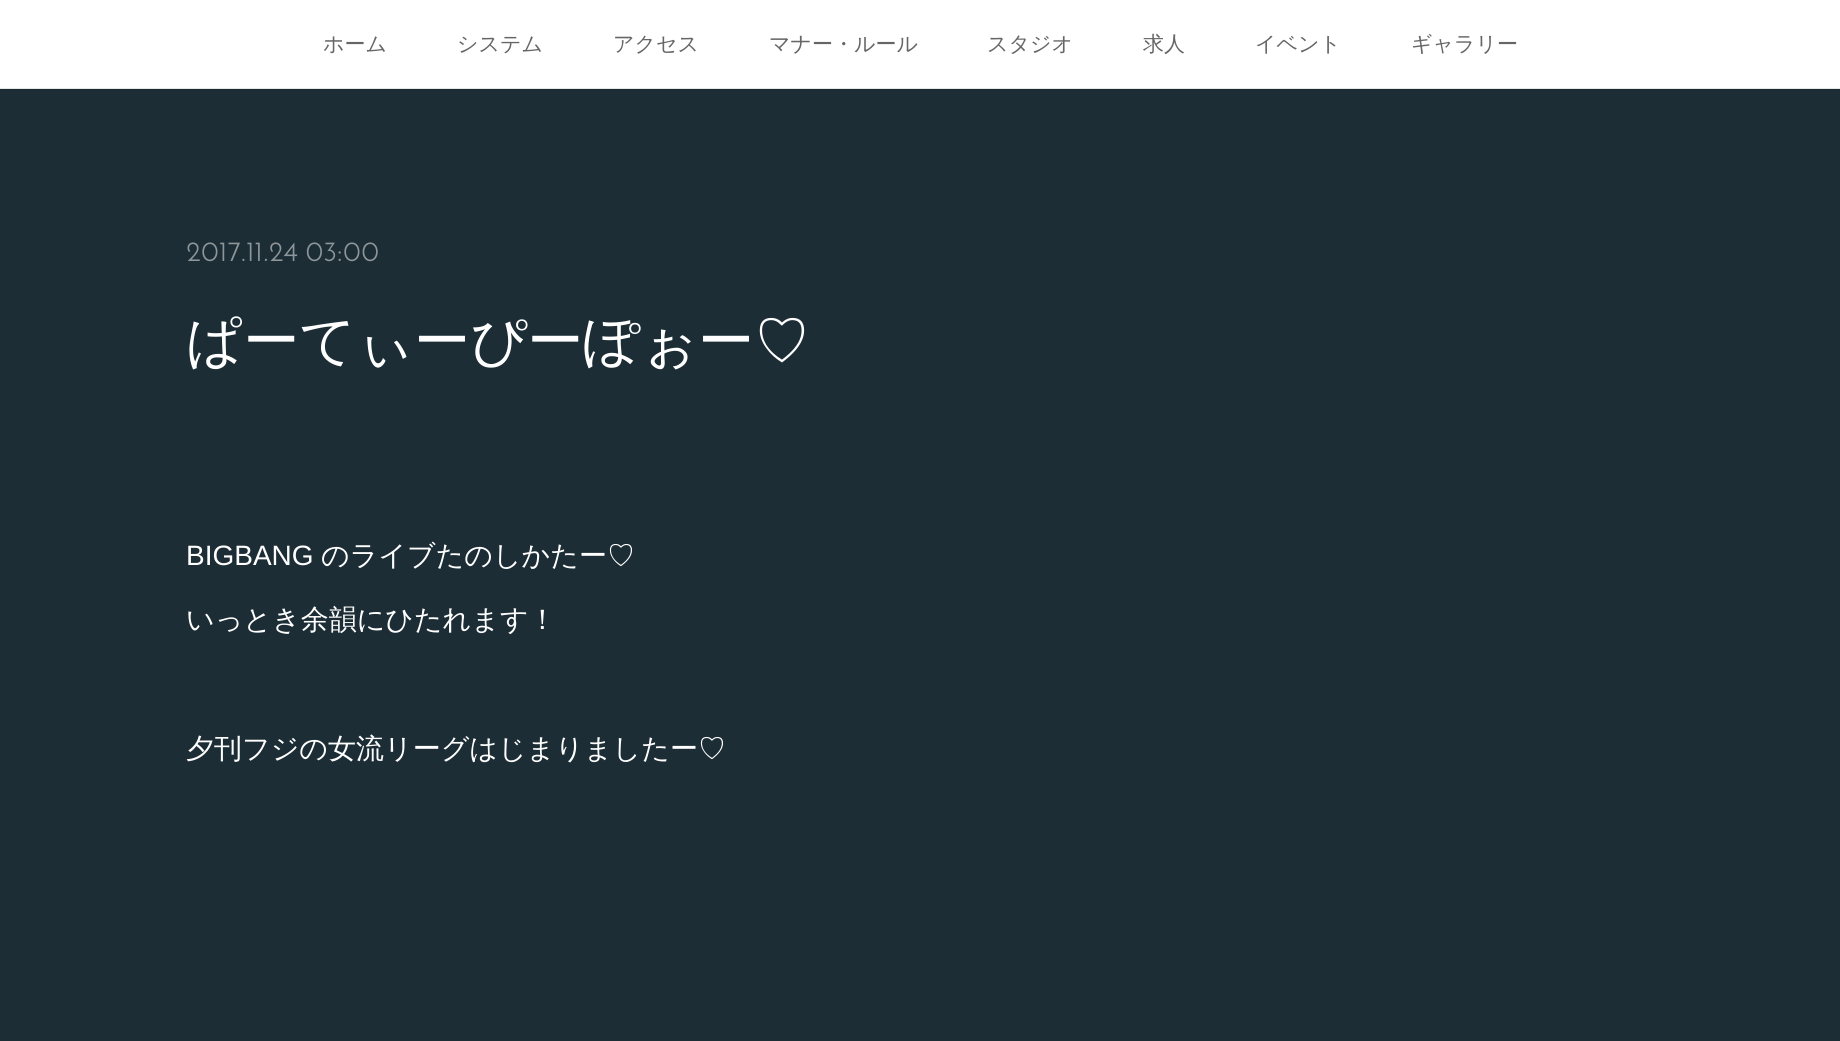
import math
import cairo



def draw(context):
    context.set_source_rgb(28 / 255, 45 / 255, 53 / 255)
    context.paint()
    context.set_source_rgb(25 / 255, 41 / 255, 48 / 255)
    context.rectangle(0, 89, 1840, 1)
    context.fill()
    context.set_source_rgb(1, 1, 1)
    context.rectangle(0, 0, 1840, 88)
    context.fill()
    context.set_source_rgb(230 / 255, 230 / 255, 230 / 255)
    context.rectangle(0, 88, 1840, 1)
    context.fill()
    context.select_font_face("WenQuanYi Zen Hei Medium")
    context.set_font_size(21)
    context.set_source_rgb(102 / 255, 102 / 255, 102 / 255)
    context.move_to(323, 51)
    context.show_text("ホーム")
    context.move_to(457, 51)
    context.show_text("システム")
    context.move_to(613, 51)
    context.show_text("アクセス")
    context.move_to(769, 51)
    context.show_text("マナー・ルール")
    context.move_to(987, 51)
    context.show_text("スタジオ")
    context.move_to(1143, 51)
    context.show_text("求人")
    context.move_to(1255, 51)
    context.show_text("イベント")
    context.move_to(1411, 51)
    context.show_text("ギャラリー")
    context.select_font_face("Josefin Sans")
    context.set_font_size(28)
    context.set_source_rgb(142 / 255, 150 / 255, 154 / 255)
    context.move_to(186, 261)
    context.show_text("2017.11.24 03:00")
    context.select_font_face("WenQuanYi Zen Hei Medium")
    context.set_font_size(56)
    context.set_source_rgb(1, 1, 1)
    context.move_to(186, 360)
    context.show_text("ぱーてぃーぴーぽぉー♡")
    context.select_font_face("Liberation Sans")
    context.set_font_size(28)
    context.move_to(186, 565)
    context.show_text("BIGBANG")
    context.select_font_face("WenQuanYi Zen Hei Medium")
    context.move_to(321, 565)
    context.show_text("のライブたのしかたー♡")
    context.move_to(186, 629)
    context.show_text("いっとき余韻にひたれます！")
    context.move_to(186, 758)
    context.show_text("夕刊フジの女流リーグはじまりましたー♡")


surface = cairo.ImageSurface(cairo.Format.RGB24, 1840, 1041)
context = cairo.Context(surface)
options = cairo.FontOptions()
options.set_hint_metrics(cairo.HintMetrics.OFF)
options.set_hint_style(cairo.HintStyle.NONE)
context.set_font_options(options)
context.set_miter_limit(4)
draw(context)
surface.write_to_png("out.png")
